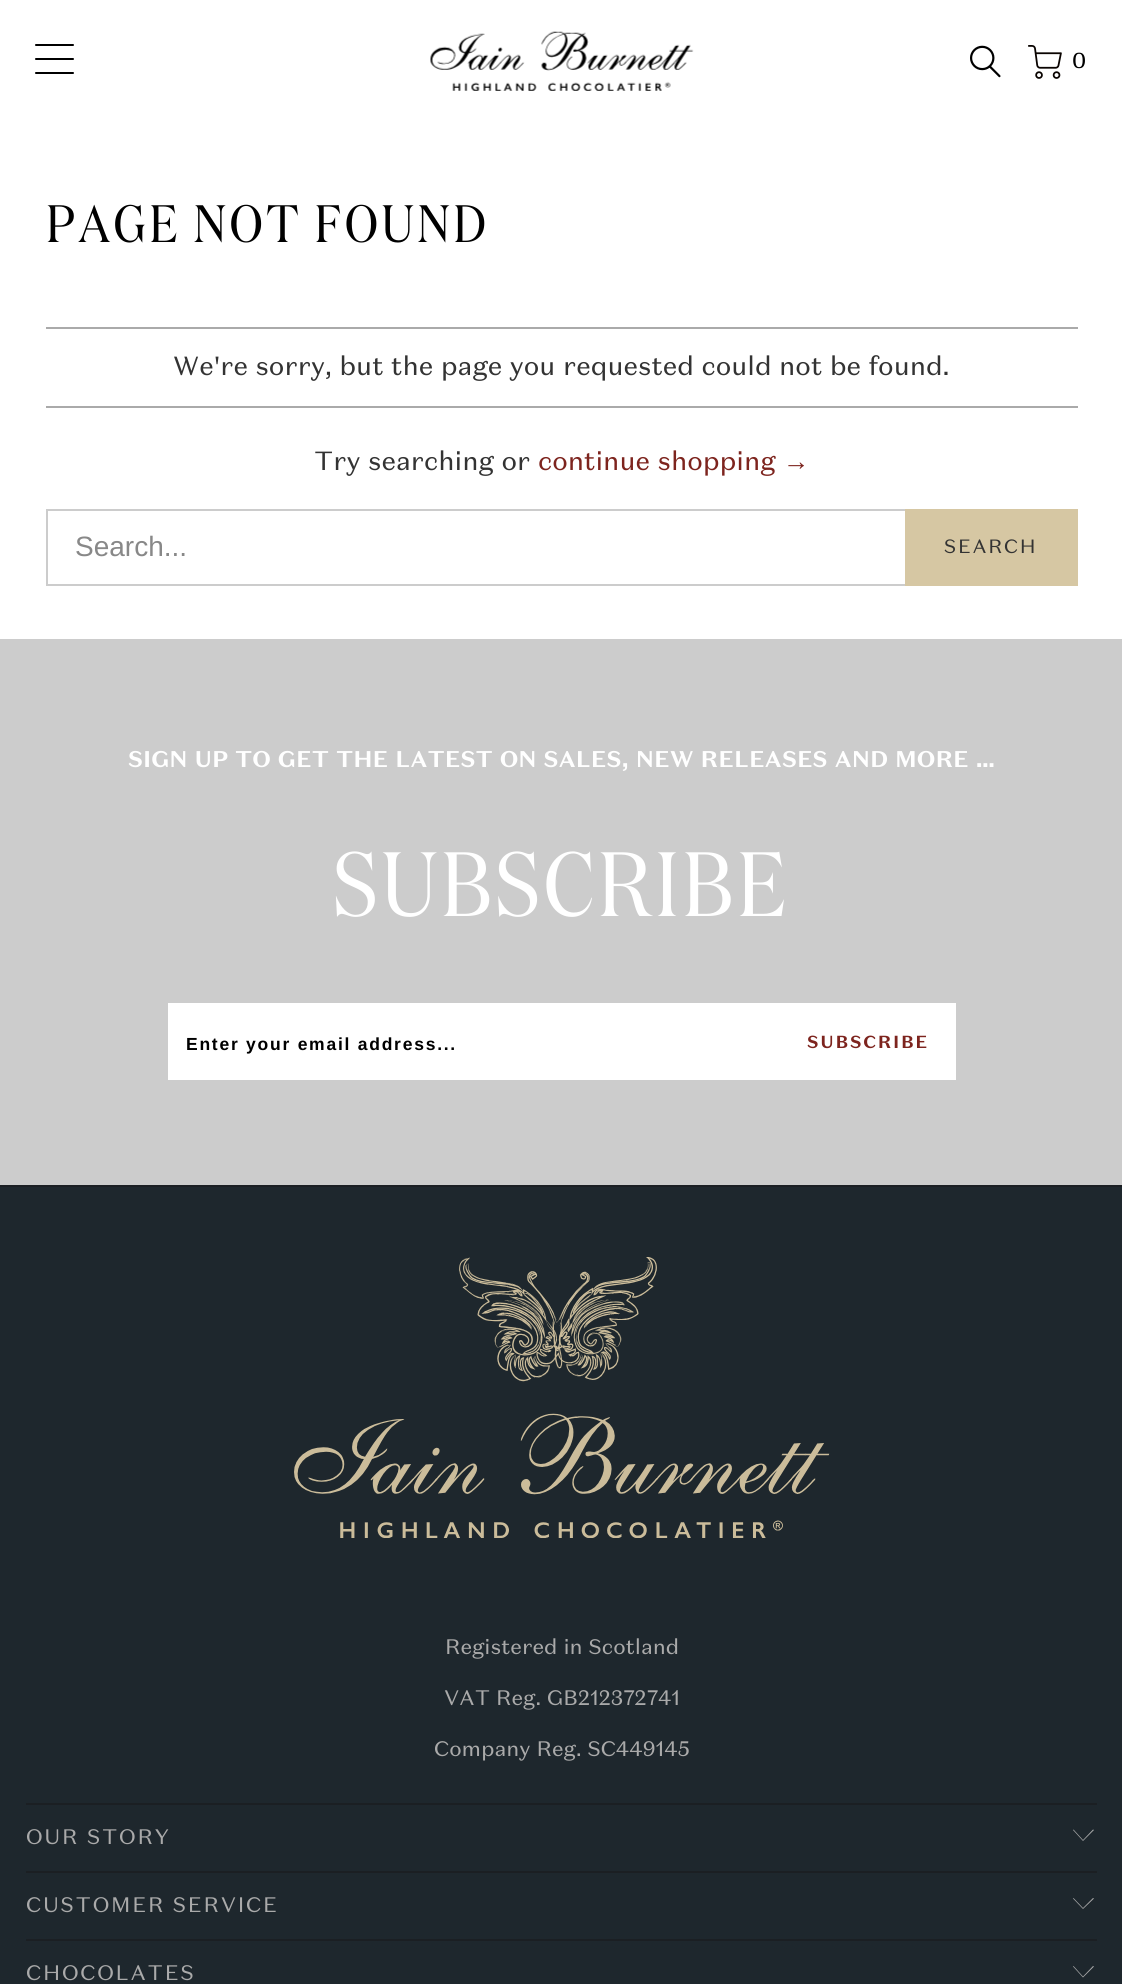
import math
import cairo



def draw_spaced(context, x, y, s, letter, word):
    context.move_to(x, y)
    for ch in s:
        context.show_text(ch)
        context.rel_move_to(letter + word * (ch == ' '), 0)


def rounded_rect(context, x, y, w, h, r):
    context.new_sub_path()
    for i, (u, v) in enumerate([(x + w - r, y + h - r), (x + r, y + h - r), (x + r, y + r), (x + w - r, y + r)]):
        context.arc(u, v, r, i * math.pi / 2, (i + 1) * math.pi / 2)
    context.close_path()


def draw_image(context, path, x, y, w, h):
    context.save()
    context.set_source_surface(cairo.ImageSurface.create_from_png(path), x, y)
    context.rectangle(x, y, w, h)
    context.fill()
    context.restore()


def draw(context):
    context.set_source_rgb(1, 1, 1)
    context.paint()
    context.set_source_rgb(0, 0, 0)
    rounded_rect(context, 35, 44, 39, 2, 1)
    context.fill()
    rounded_rect(context, 35, 58, 39, 2, 1)
    context.fill()
    rounded_rect(context, 35, 72, 39, 2, 1)
    context.fill()
    draw_image(context, "images/1.png", 430, 31, 264, 60)
    draw_image(context, "images/2.png", 970, 45, 31, 33)
    draw_image(context, "images/3.png", 1028, 45, 34, 34)
    context.set_source_rgb(170 / 255, 170 / 255, 170 / 255)
    context.rectangle(46, 327, 1032, 2)
    context.fill()
    context.rectangle(46, 406, 1032, 2)
    context.fill()
    context.rectangle(47, 510, 1030, 75)
    context.set_source_rgb(204 / 255, 204 / 255, 204 / 255)
    context.stroke()
    context.set_source_rgb(214 / 255, 199 / 255, 163 / 255)
    context.rectangle(905, 509, 173, 77)
    context.fill()
    context.set_source_rgb(204 / 255, 204 / 255, 204 / 255)
    context.rectangle(0, 639, 1122, 546)
    context.fill()
    context.set_source_rgb(1, 1, 1)
    context.rectangle(168, 1003, 788, 77)
    context.fill()
    context.set_source_rgb(30 / 255, 39 / 255, 45 / 255)
    context.rectangle(0, 1187, 1122, 797)
    context.fill()
    context.set_source_rgb(27 / 255, 31 / 255, 35 / 255)
    context.rectangle(0, 1185, 1122, 2)
    context.fill()
    draw_image(context, "images/4.png", 294, 1257, 536, 281)
    context.rectangle(26, 1803, 1071, 2)
    context.fill()
    context.set_source_rgb(170 / 255, 170 / 255, 170 / 255)
    context.new_path()
    context.move_to(1083, 1841)
    context.line_to(1073, 1830)
    context.line_to(1073.5, 1829.5)
    context.line_to(1083, 1840)
    context.line_to(1093, 1829.5)
    context.line_to(1094, 1830)
    context.close_path()
    context.fill()
    context.set_source_rgb(27 / 255, 31 / 255, 35 / 255)
    context.rectangle(26, 1871, 1071, 2)
    context.fill()
    context.set_source_rgb(170 / 255, 170 / 255, 170 / 255)
    context.new_path()
    context.move_to(1083, 1909)
    context.line_to(1073, 1898.5)
    context.line_to(1073.5, 1898)
    context.line_to(1083, 1908)
    context.line_to(1093, 1898)
    context.line_to(1094, 1898.5)
    context.close_path()
    context.fill()
    context.set_source_rgb(27 / 255, 31 / 255, 35 / 255)
    context.rectangle(26, 1939, 1071, 2)
    context.fill()
    context.set_source_rgb(170 / 255, 170 / 255, 170 / 255)
    context.new_path()
    context.move_to(1083, 1977.5)
    context.line_to(1073, 1966.5)
    context.line_to(1073.5, 1966)
    context.line_to(1083, 1976.5)
    context.line_to(1093, 1966)
    context.line_to(1094, 1966.5)
    context.close_path()
    context.fill()
    context.select_font_face("Domine")
    context.set_font_size(21)
    context.set_source_rgb(0, 0, 0)
    draw_spaced(context, 1072, 68, "0", 1.75, 0)
    context.select_font_face("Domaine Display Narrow")
    context.set_font_size(52.5)
    draw_spaced(context, 46, 242, "PAGE NOT FOUND", 3.5, 0)
    context.select_font_face("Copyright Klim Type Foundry")
    context.set_font_size(26.25)
    context.set_source_rgb(51 / 255, 51 / 255, 51 / 255)
    context.move_to(173, 375)
    context.show_text("We're sorry, but the page you requested could not be found.")
    context.move_to(314, 470)
    context.show_text("Try searching or")
    context.set_source_rgb(125 / 255, 36 / 255, 30 / 255)
    context.move_to(538, 470)
    context.show_text("continue shopping")
    context.select_font_face("Liberation Sans")
    context.move_to(783, 470)
    context.show_text("→")
    context.set_font_size(28)
    context.set_source_rgb(136 / 255, 136 / 255, 136 / 255)
    context.move_to(75, 556)
    context.show_text("Search...")
    context.select_font_face("Copyright Klim Type Foundry")
    context.set_font_size(19.25)
    context.set_source_rgb(51 / 255, 51 / 255, 51 / 255)
    draw_spaced(context, 944, 553, "SEARCH", 1.75, 0)
    context.select_font_face("Copyright Klim Type Foundry", cairo.FontSlant.NORMAL, cairo.FontWeight.BOLD)
    context.set_font_size(22.75)
    context.set_source_rgb(1, 1, 1)
    context.move_to(128, 767)
    context.show_text("SIGN UP TO GET THE LATEST ON SALES, NEW RELEASES AND MORE …")
    context.select_font_face("Domaine Display Narrow")
    context.set_font_size(91)
    draw_spaced(context, 333, 916, "SUBSCRIBE", 3.5, 0)
    context.select_font_face("Liberation Sans", cairo.FontSlant.NORMAL, cairo.FontWeight.BOLD)
    context.set_font_size(17.5)
    context.set_source_rgb(0, 0, 0)
    draw_spaced(context, 186, 1050, "Enter your email address...", 1.75, 0)
    context.select_font_face("Copyright Klim Type Foundry", cairo.FontSlant.NORMAL, cairo.FontWeight.BOLD)
    context.set_source_rgb(125 / 255, 36 / 255, 30 / 255)
    draw_spaced(context, 807, 1048, "SUBSCRIBE", 1.75, 0)
    context.select_font_face("Copyright Klim Type Foundry")
    context.set_font_size(21)
    context.set_source_rgb(170 / 255, 170 / 255, 170 / 255)
    context.move_to(445, 1654)
    context.show_text("Registered in Scotland")
    context.move_to(444, 1705)
    context.show_text("VAT Reg. GB212372741")
    context.move_to(434, 1756)
    context.show_text("Company Reg. SC449145")
    draw_spaced(context, 26, 1844, "OUR STORY", 1.75, 0)
    draw_spaced(context, 26, 1912, "CUSTOMER SERVICE", 1.75, 0)
    draw_spaced(context, 26, 1980, "CHOCOLATES", 1.75, 0)


surface = cairo.ImageSurface(cairo.Format.RGB24, 1122, 1984)
context = cairo.Context(surface)
options = cairo.FontOptions()
options.set_hint_metrics(cairo.HintMetrics.OFF)
options.set_hint_style(cairo.HintStyle.NONE)
context.set_font_options(options)
context.set_miter_limit(4)
draw(context)
surface.write_to_png("out.png")
